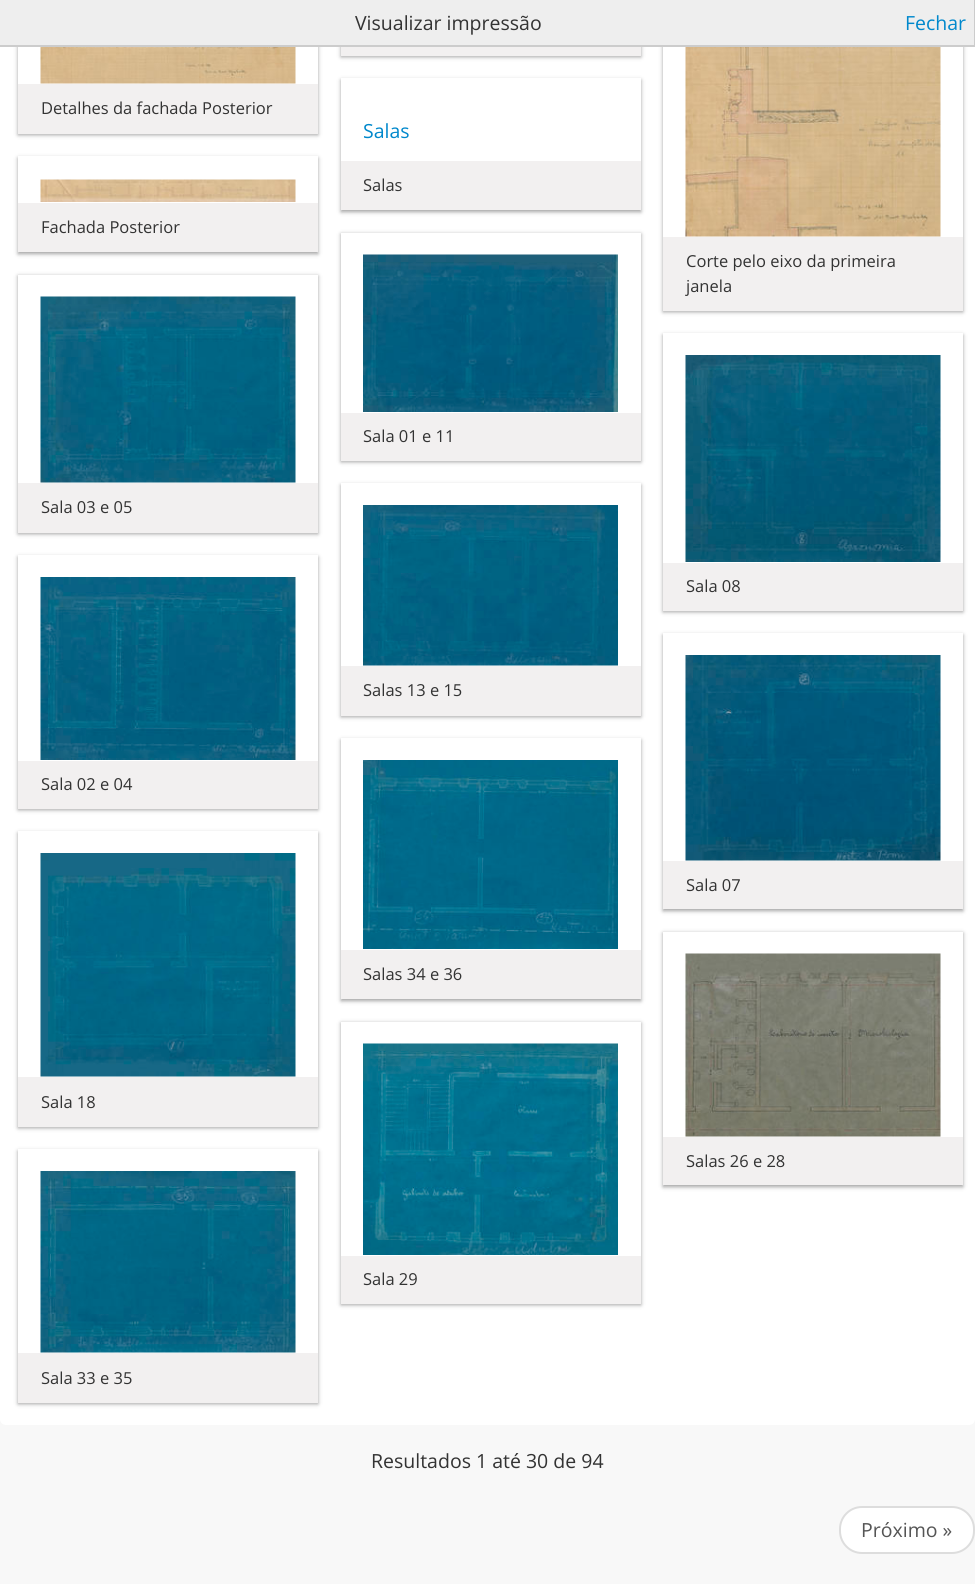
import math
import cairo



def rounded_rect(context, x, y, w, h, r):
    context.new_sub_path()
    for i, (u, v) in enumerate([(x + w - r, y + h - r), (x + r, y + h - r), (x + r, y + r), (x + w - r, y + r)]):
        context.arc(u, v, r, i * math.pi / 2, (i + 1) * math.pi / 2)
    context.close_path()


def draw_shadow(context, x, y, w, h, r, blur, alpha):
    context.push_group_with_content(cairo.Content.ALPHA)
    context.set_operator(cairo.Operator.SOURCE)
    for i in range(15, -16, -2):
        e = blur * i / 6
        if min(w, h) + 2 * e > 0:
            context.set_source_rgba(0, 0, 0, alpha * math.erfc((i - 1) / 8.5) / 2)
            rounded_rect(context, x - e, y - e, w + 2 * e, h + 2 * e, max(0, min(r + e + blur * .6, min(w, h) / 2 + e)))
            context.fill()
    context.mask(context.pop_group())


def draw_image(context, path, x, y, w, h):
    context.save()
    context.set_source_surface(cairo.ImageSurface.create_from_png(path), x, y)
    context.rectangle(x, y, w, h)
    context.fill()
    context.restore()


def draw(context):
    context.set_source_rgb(248 / 255, 248 / 255, 248 / 255)
    context.paint()
    context.set_source_rgb(1, 1, 1)
    rounded_rect(context, 0, -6, 975, 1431, 6)
    context.fill()
    context.set_source_rgb(25 / 255, 25 / 255, 25 / 255)
    draw_shadow(context, 341, -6, 300, 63, 0, 2, 0.4)
    draw_shadow(context, 18, -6, 300, 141, 0, 2, 0.4)
    draw_shadow(context, 663, -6, 300, 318, 0, 2, 0.4)
    context.set_source_rgb(238 / 255, 238 / 255, 238 / 255)
    context.rectangle(0, 0, 974, 45)
    context.fill()
    context.set_source_rgb(204 / 255, 204 / 255, 204 / 255)
    context.rectangle(974, 0, 1, 47)
    context.fill()
    context.rectangle(0, 45, 975, 2)
    context.fill()
    context.set_source_rgb(242 / 255, 240 / 255, 240 / 255)
    context.rectangle(341, 47, 300, 9)
    context.fill()
    context.set_source_rgb(1, 1, 1)
    context.rectangle(18, 47, 300, 37)
    context.fill()
    draw_image(context, "images/1.png", 40, 47, 256, 37)
    context.set_source_rgb(242 / 255, 240 / 255, 240 / 255)
    context.rectangle(18, 84, 300, 50)
    context.fill()
    context.set_source_rgb(25 / 255, 25 / 255, 25 / 255)
    draw_shadow(context, 341, 80, 300, 132, 0, 2, 0.4)
    context.set_source_rgb(1, 1, 1)
    context.rectangle(341, 78, 300, 83)
    context.fill()
    context.set_source_rgb(242 / 255, 240 / 255, 240 / 255)
    context.rectangle(341, 161, 300, 49)
    context.fill()
    context.save()
    context.set_fill_rule(cairo.FillRule.EVEN_ODD)
    context.new_path()
    context.move_to(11, 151)
    context.line_to(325, 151)
    context.line_to(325, 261)
    context.line_to(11, 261)
    context.close_path()
    context.move_to(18, 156)
    context.line_to(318, 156)
    context.line_to(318, 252)
    context.line_to(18, 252)
    context.close_path()
    context.clip()
    context.set_source_rgb(25 / 255, 25 / 255, 25 / 255)
    draw_shadow(context, 18, 158, 300, 96, 0, 2, 0.4)
    context.restore()
    draw_image(context, "images/2.png", 40, 179, 256, 23)
    context.rectangle(18, 203, 300, 49)
    context.fill()
    context.set_source_rgb(1, 1, 1)
    context.rectangle(663, 47, 300, 190)
    context.fill()
    draw_image(context, "images/3.png", 685, 47, 256, 190)
    context.set_source_rgb(242 / 255, 240 / 255, 240 / 255)
    context.rectangle(663, 237, 300, 74)
    context.fill()
    context.set_source_rgb(25 / 255, 25 / 255, 25 / 255)
    draw_shadow(context, 341, 234, 300, 228, 0, 2, 0.4)
    context.set_source_rgb(1, 1, 1)
    context.rectangle(341, 233, 300, 180)
    context.fill()
    draw_image(context, "images/4.png", 363, 254, 255, 158)
    context.set_source_rgb(242 / 255, 240 / 255, 240 / 255)
    context.rectangle(341, 413, 300, 48)
    context.fill()
    context.set_source_rgb(25 / 255, 25 / 255, 25 / 255)
    draw_shadow(context, 18, 276, 300, 258, 0, 2, 0.4)
    context.set_source_rgb(1, 1, 1)
    context.rectangle(18, 275, 300, 208)
    context.fill()
    draw_image(context, "images/5.png", 40, 296, 256, 187)
    context.set_source_rgb(242 / 255, 240 / 255, 240 / 255)
    context.rectangle(18, 483, 300, 50)
    context.fill()
    context.set_source_rgb(25 / 255, 25 / 255, 25 / 255)
    draw_shadow(context, 663, 335, 300, 277, 0, 2, 0.4)
    context.set_source_rgb(1, 1, 1)
    context.rectangle(663, 333, 300, 230)
    context.fill()
    draw_image(context, "images/6.png", 685, 355, 256, 207)
    context.set_source_rgb(242 / 255, 240 / 255, 240 / 255)
    context.rectangle(663, 563, 300, 48)
    context.fill()
    context.set_source_rgb(25 / 255, 25 / 255, 25 / 255)
    draw_shadow(context, 341, 485, 300, 232, 0, 2, 0.4)
    context.set_source_rgb(1, 1, 1)
    context.rectangle(341, 483, 300, 183)
    context.fill()
    draw_image(context, "images/7.png", 363, 505, 255, 161)
    context.set_source_rgb(242 / 255, 240 / 255, 240 / 255)
    context.rectangle(341, 666, 300, 50)
    context.fill()
    context.set_source_rgb(25 / 255, 25 / 255, 25 / 255)
    draw_shadow(context, 18, 557, 300, 253, 0, 2, 0.4)
    context.set_source_rgb(1, 1, 1)
    context.rectangle(18, 555, 300, 206)
    context.fill()
    draw_image(context, "images/8.png", 40, 577, 256, 183)
    context.set_source_rgb(242 / 255, 240 / 255, 240 / 255)
    context.rectangle(18, 761, 300, 48)
    context.fill()
    context.save()
    context.set_fill_rule(cairo.FillRule.EVEN_ODD)
    context.new_path()
    context.move_to(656, 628)
    context.line_to(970, 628)
    context.line_to(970, 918)
    context.line_to(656, 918)
    context.close_path()
    context.move_to(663, 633)
    context.line_to(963, 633)
    context.line_to(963, 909)
    context.line_to(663, 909)
    context.close_path()
    context.clip()
    context.set_source_rgb(25 / 255, 25 / 255, 25 / 255)
    draw_shadow(context, 663, 635, 300, 276, 0, 2, 0.4)
    context.restore()
    draw_image(context, "images/9.png", 685, 655, 256, 206)
    context.rectangle(663, 861, 300, 48)
    context.fill()
    context.set_source_rgb(25 / 255, 25 / 255, 25 / 255)
    draw_shadow(context, 341, 740, 300, 261, 0, 2, 0.4)
    context.set_source_rgb(1, 1, 1)
    context.rectangle(341, 738, 300, 212)
    context.fill()
    draw_image(context, "images/10.png", 363, 760, 255, 189)
    context.set_source_rgb(242 / 255, 240 / 255, 240 / 255)
    context.rectangle(341, 950, 300, 49)
    context.fill()
    context.set_source_rgb(25 / 255, 25 / 255, 25 / 255)
    draw_shadow(context, 18, 833, 300, 295, 0, 2, 0.4)
    context.set_source_rgb(1, 1, 1)
    context.rectangle(18, 831, 300, 246)
    context.fill()
    draw_image(context, "images/11.png", 40, 853, 256, 224)
    context.set_source_rgb(242 / 255, 240 / 255, 240 / 255)
    context.rectangle(18, 1077, 300, 50)
    context.fill()
    context.save()
    context.set_fill_rule(cairo.FillRule.EVEN_ODD)
    context.new_path()
    context.move_to(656, 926)
    context.line_to(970, 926)
    context.line_to(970, 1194)
    context.line_to(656, 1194)
    context.close_path()
    context.move_to(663, 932)
    context.line_to(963, 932)
    context.line_to(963, 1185)
    context.line_to(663, 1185)
    context.close_path()
    context.clip()
    context.set_source_rgb(25 / 255, 25 / 255, 25 / 255)
    draw_shadow(context, 663, 933, 300, 254, 0, 2, 0.4)
    context.restore()
    draw_image(context, "images/12.png", 685, 953, 256, 184)
    context.rectangle(663, 1137, 300, 48)
    context.fill()
    context.set_source_rgb(25 / 255, 25 / 255, 25 / 255)
    draw_shadow(context, 341, 1023, 300, 282, 0, 2, 0.4)
    context.set_source_rgb(1, 1, 1)
    context.rectangle(341, 1022, 300, 234)
    context.fill()
    draw_image(context, "images/13.png", 363, 1043, 255, 212)
    context.set_source_rgb(242 / 255, 240 / 255, 240 / 255)
    context.rectangle(341, 1256, 300, 48)
    context.fill()
    context.set_source_rgb(25 / 255, 25 / 255, 25 / 255)
    draw_shadow(context, 18, 1151, 300, 253, 0, 2, 0.4)
    context.set_source_rgb(1, 1, 1)
    context.rectangle(18, 1149, 300, 204)
    context.fill()
    draw_image(context, "images/14.png", 40, 1171, 256, 182)
    context.set_source_rgb(242 / 255, 240 / 255, 240 / 255)
    context.rectangle(18, 1353, 300, 50)
    context.fill()
    context.set_source_rgb(1, 1, 1)
    rounded_rect(context, 840, 1507, 134, 46, 22)
    context.fill_preserve()
    context.set_source_rgb(221 / 255, 221 / 255, 221 / 255)
    context.stroke()
    context.select_font_face("Open Sans")
    context.set_font_size(19.5)
    context.set_source_rgb(51 / 255, 51 / 255, 51 / 255)
    context.move_to(355, 30)
    context.show_text("Visualizar impressão")
    context.set_source_rgb(0, 136 / 255, 204 / 255)
    context.move_to(905, 30)
    context.show_text("Fechar")
    context.set_font_size(16.5)
    context.set_source_rgb(51 / 255, 51 / 255, 51 / 255)
    context.move_to(41, 114)
    context.show_text("Detalhes da fachada Posterior")
    context.set_font_size(19.5)
    context.set_source_rgb(0, 136 / 255, 204 / 255)
    context.move_to(363, 138)
    context.show_text("Salas")
    context.set_font_size(16.5)
    context.set_source_rgb(51 / 255, 51 / 255, 51 / 255)
    context.move_to(363, 191)
    context.show_text("Salas")
    context.move_to(41, 233)
    context.show_text("Fachada Posterior")
    context.move_to(686, 267)
    context.show_text("Corte pelo eixo da primeira")
    context.move_to(686, 292)
    context.show_text("janela")
    context.move_to(363, 442)
    context.show_text("Sala 01 e 11")
    context.move_to(41, 513)
    context.show_text("Sala 03 e 05")
    context.move_to(686, 592)
    context.show_text("Sala 08")
    context.move_to(363, 696)
    context.show_text("Salas 13 e 15")
    context.move_to(41, 790)
    context.show_text("Sala 02 e 04")
    context.move_to(686, 891)
    context.show_text("Sala 07")
    context.move_to(363, 980)
    context.show_text("Salas 34 e 36")
    context.move_to(41, 1108)
    context.show_text("Sala 18")
    context.move_to(686, 1167)
    context.show_text("Salas 26 e 28")
    context.move_to(363, 1285)
    context.show_text("Sala 29")
    context.move_to(41, 1384)
    context.show_text("Sala 33 e 35")
    context.set_font_size(19.5)
    context.move_to(371, 1468)
    context.show_text("Resultados 1 até 30 de 94")
    context.set_source_rgb(85 / 255, 85 / 255, 85 / 255)
    context.move_to(861, 1537)
    context.show_text("Próximo »")


surface = cairo.ImageSurface(cairo.Format.RGB24, 975, 1584)
context = cairo.Context(surface)
options = cairo.FontOptions()
options.set_hint_metrics(cairo.HintMetrics.OFF)
options.set_hint_style(cairo.HintStyle.NONE)
context.set_font_options(options)
context.set_miter_limit(4)
draw(context)
surface.write_to_png("out.png")
